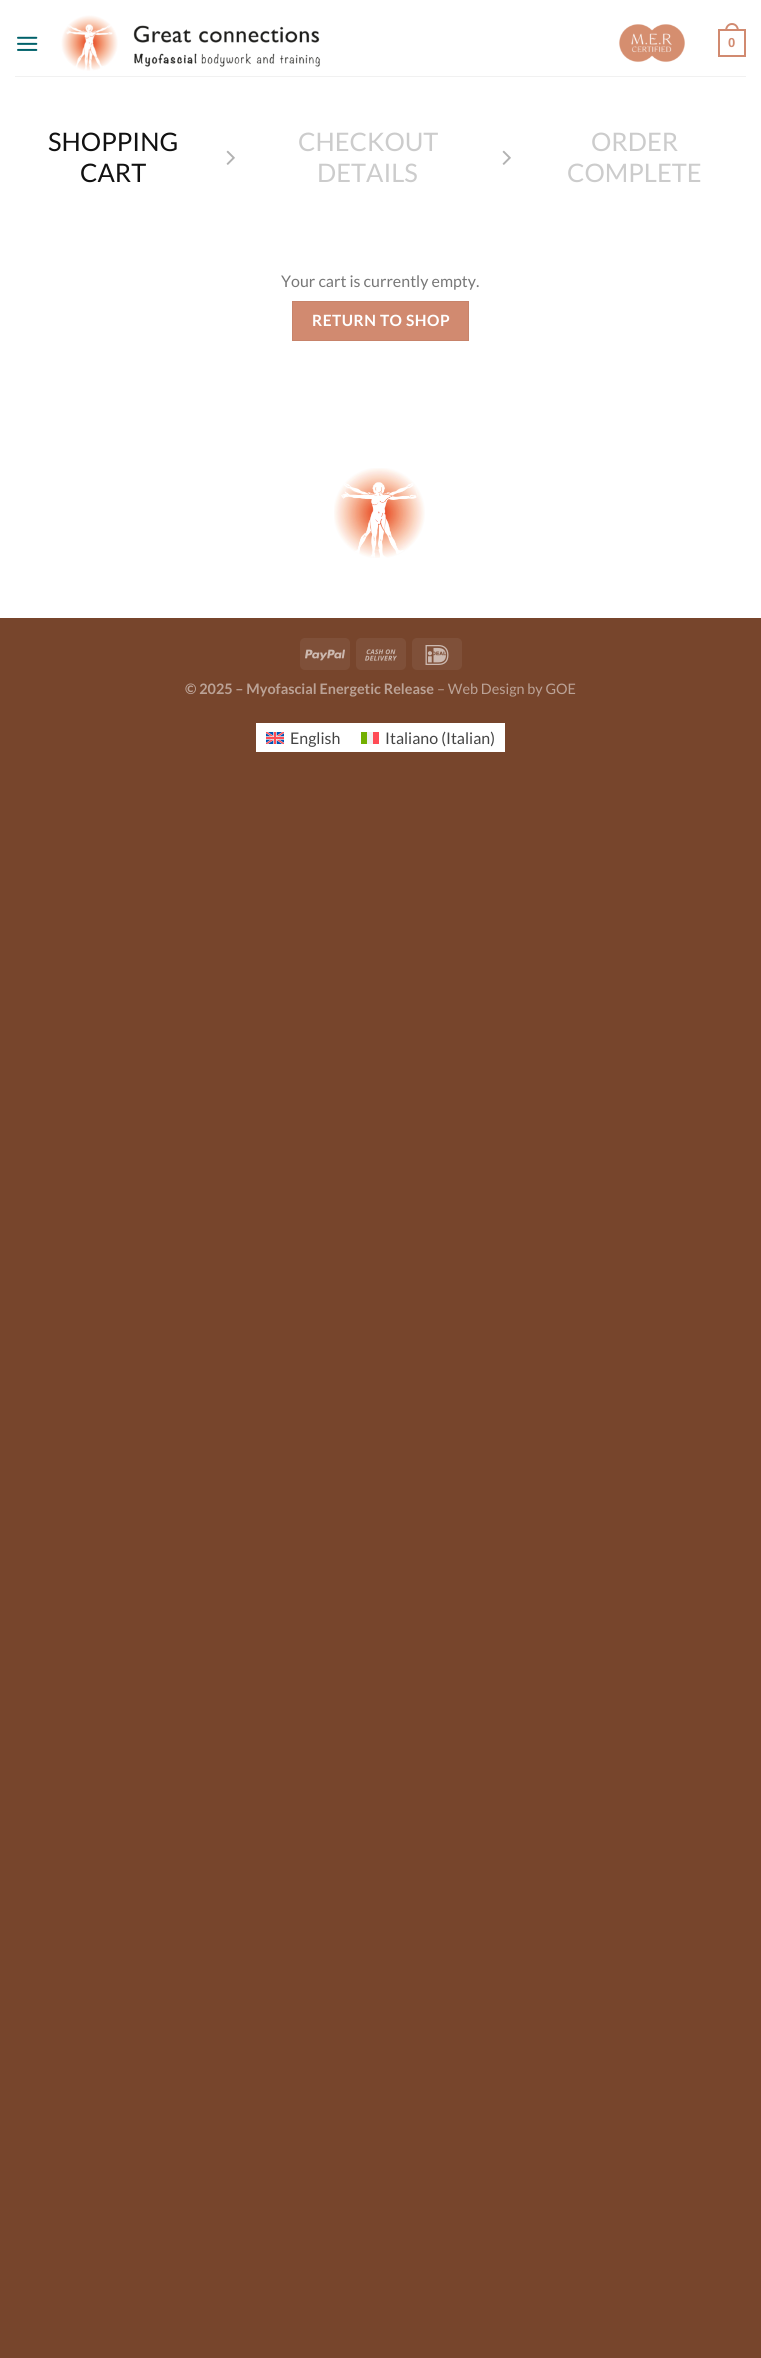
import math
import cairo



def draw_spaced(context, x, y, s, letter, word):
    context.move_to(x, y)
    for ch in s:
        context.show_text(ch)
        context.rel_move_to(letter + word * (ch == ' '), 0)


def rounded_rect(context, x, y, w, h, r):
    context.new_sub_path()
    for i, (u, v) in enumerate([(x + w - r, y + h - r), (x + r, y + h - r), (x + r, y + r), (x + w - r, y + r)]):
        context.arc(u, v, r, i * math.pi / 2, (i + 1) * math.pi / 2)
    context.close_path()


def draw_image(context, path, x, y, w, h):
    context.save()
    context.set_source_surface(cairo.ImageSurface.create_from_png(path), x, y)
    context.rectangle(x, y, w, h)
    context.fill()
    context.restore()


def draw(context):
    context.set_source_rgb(119 / 255, 69 / 255, 44 / 255)
    context.paint()
    context.set_source_rgb(1, 1, 1)
    context.rectangle(0, 0, 761, 618)
    context.fill()
    draw_image(context, "images/1.png", 17, 36, 21, 15)
    draw_image(context, "images/2.png", 61, 15, 624, 56)
    context.rectangle(719, 30, 26, 26)
    context.set_source_rgb(209 / 255, 138 / 255, 112 / 255)
    context.stroke()
    context.set_fill_rule(cairo.FillRule.EVEN_ODD)
    context.new_path()
    context.move_to(732, 23)
    context.curve_to(736.5, 23, 739, 27, 739, 31)
    context.line_to(725, 31)
    context.curve_to(725, 27, 727.5, 23, 732, 23)
    context.close_path()
    context.move_to(732, 25)
    context.curve_to(735.5, 25, 737, 28, 737, 31)
    context.line_to(727, 31)
    context.curve_to(727, 28, 728.5, 25, 732, 25)
    context.close_path()
    context.fill()
    context.set_source_rgb(241 / 255, 241 / 255, 241 / 255)
    context.rectangle(15, 76, 731, 1)
    context.fill()
    draw_image(context, "images/3.png", 226, 150, 9, 15)
    draw_image(context, "images/3.png", 502, 150, 9, 15)
    context.set_source_rgb(209 / 255, 138 / 255, 112 / 255)
    context.rectangle(292.5, 301.5, 176, 39)
    context.fill_preserve()
    context.set_source_rgb(199 / 255, 131 / 255, 106 / 255)
    context.set_line_width(1)
    context.stroke()
    draw_image(context, "images/4.png", 334, 468, 91, 90)
    context.set_source_rgb(127 / 255, 80 / 255, 57 / 255)
    rounded_rect(context, 300, 638, 50, 32, 5)
    context.fill()
    draw_image(context, "images/5.png", 305, 649, 40, 12)
    rounded_rect(context, 356, 638, 50, 32, 5)
    context.fill()
    draw_image(context, "images/6.png", 365, 649, 32, 12)
    rounded_rect(context, 412, 638, 50, 32, 5)
    context.fill()
    draw_image(context, "images/7.png", 425, 645, 24, 20)
    context.set_source_rgb(1, 1, 1)
    context.rectangle(256, 723, 249, 29)
    context.fill()
    draw_image(context, "images/8.png", 266, 732, 18, 12)
    context.set_source_rgb(115 / 255, 175 / 255, 0)
    context.rectangle(361, 732, 6, 12)
    context.fill()
    context.set_source_rgb(240 / 255, 240 / 255, 240 / 255)
    context.rectangle(367, 732, 6, 12)
    context.fill()
    context.set_source_rgb(1, 75 / 255, 85 / 255)
    context.rectangle(373, 732, 6, 12)
    context.fill()
    context.select_font_face("Liberation Sans", cairo.FontSlant.NORMAL, cairo.FontWeight.BOLD)
    context.set_font_size(13)
    context.set_source_rgb(209 / 255, 138 / 255, 112 / 255)
    context.move_to(728, 47)
    context.show_text("0")
    context.select_font_face("Lato")
    context.set_font_size(25.5)
    context.set_source_rgb(17 / 255, 17 / 255, 17 / 255)
    context.move_to(48, 151)
    context.show_text("SHOPPING")
    context.move_to(80, 182)
    context.show_text("CART")
    context.set_source_rgb(204 / 255, 204 / 255, 204 / 255)
    context.move_to(298, 151)
    context.show_text("CHECKOUT")
    context.move_to(317, 182)
    context.show_text("DETAILS")
    context.move_to(591, 151)
    context.show_text("ORDER")
    context.move_to(567, 182)
    context.show_text("COMPLETE")
    context.set_font_size(16)
    context.set_source_rgb(119 / 255, 119 / 255, 119 / 255)
    context.move_to(281, 287)
    context.show_text("Your cart is currently empty.")
    context.select_font_face("Lato", cairo.FontSlant.NORMAL, cairo.FontWeight.BOLD)
    context.set_font_size(15.5)
    context.set_source_rgb(1, 1, 1)
    draw_spaced(context, 312, 326, "RETURN TO SHOP", 0.5, 0)
    context.set_font_size(14.4)
    context.set_source_rgb(187 / 255, 162 / 255, 150 / 255)
    context.move_to(185, 694)
    context.show_text("© 2025 – Myofascial Energetic Release")
    context.select_font_face("Lato")
    context.move_to(437, 694)
    context.show_text("– Web Design by GOE")
    context.set_font_size(16)
    context.set_source_rgb(68 / 255, 68 / 255, 68 / 255)
    context.move_to(290, 744)
    context.show_text("English")
    context.move_to(385, 744)
    context.show_text("Italiano (Italian)")


surface = cairo.ImageSurface(cairo.Format.RGB24, 761, 2358)
context = cairo.Context(surface)
options = cairo.FontOptions()
options.set_hint_metrics(cairo.HintMetrics.OFF)
options.set_hint_style(cairo.HintStyle.NONE)
context.set_font_options(options)
context.set_miter_limit(4)
draw(context)
surface.write_to_png("out.png")
